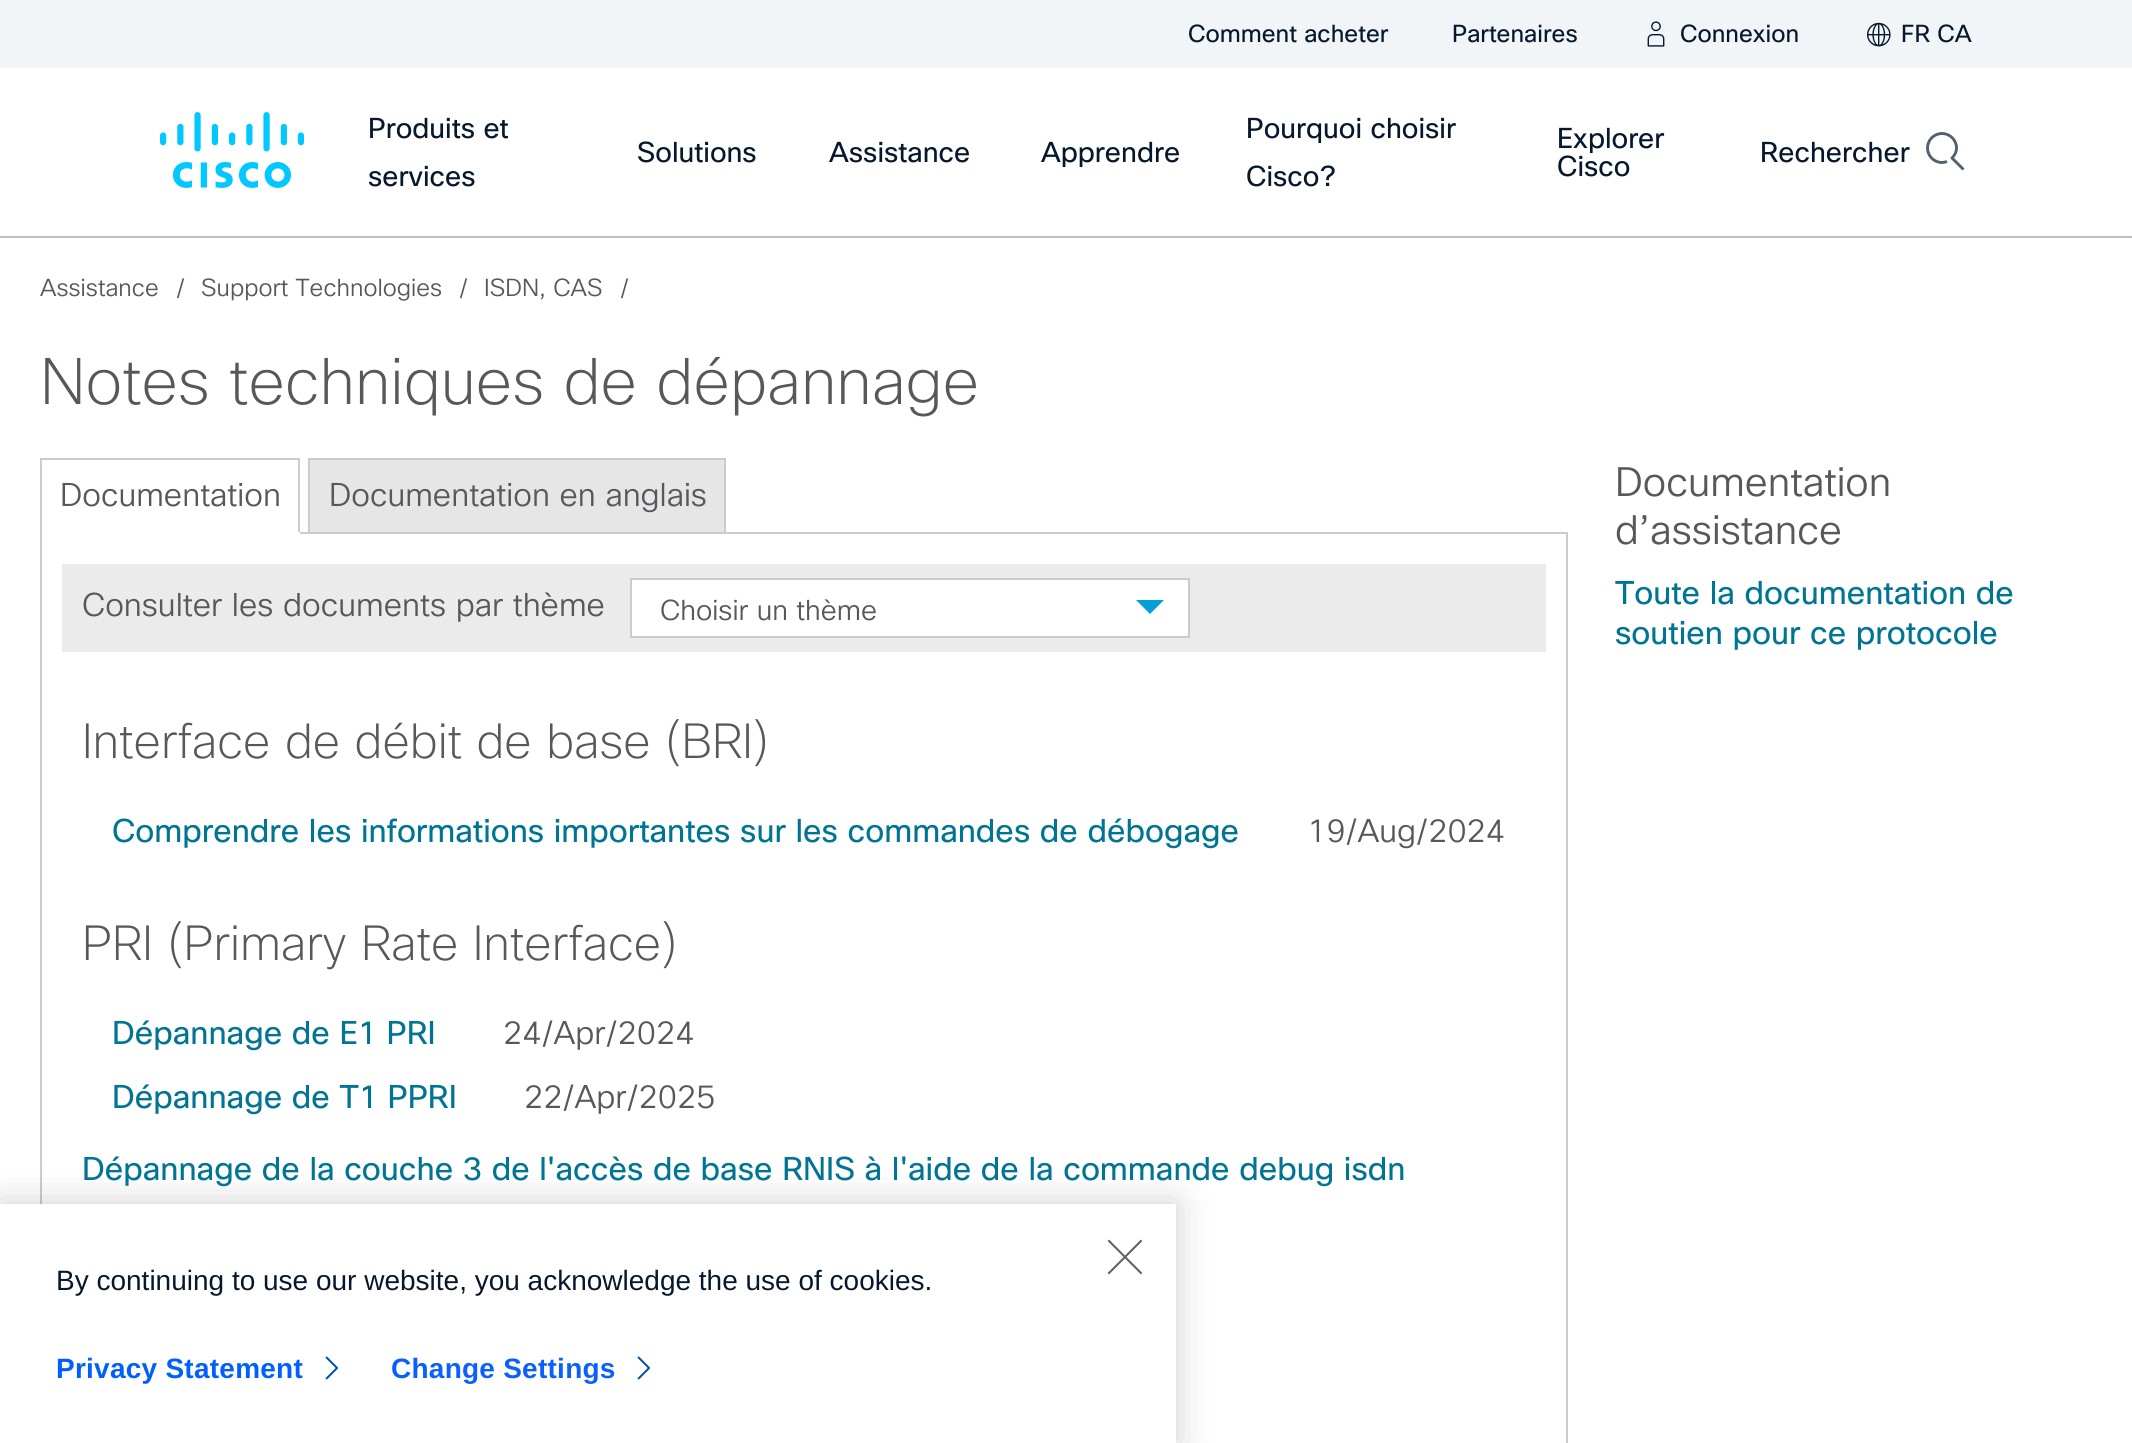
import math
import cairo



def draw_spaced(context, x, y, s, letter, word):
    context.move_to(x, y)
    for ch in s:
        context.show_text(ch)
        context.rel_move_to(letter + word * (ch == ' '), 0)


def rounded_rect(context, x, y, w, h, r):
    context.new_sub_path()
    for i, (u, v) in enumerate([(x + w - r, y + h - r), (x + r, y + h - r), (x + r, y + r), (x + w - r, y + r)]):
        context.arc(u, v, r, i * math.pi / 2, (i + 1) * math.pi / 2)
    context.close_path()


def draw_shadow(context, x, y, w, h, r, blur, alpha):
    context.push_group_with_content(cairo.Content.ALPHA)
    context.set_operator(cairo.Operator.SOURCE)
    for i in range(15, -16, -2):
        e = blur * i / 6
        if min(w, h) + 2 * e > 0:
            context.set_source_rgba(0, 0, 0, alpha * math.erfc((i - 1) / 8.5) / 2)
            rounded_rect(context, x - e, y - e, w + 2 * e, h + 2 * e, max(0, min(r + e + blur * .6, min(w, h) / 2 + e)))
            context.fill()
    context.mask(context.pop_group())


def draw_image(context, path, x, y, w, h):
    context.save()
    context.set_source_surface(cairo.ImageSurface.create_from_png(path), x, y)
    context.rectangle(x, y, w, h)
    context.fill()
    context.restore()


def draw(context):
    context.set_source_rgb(242 / 255, 245 / 255, 247 / 255)
    context.paint()
    draw_image(context, "images/1.png", 1647, 21, 18, 26)
    draw_image(context, "images/2.png", 1867, 22, 24, 25)
    context.set_source_rgb(1, 1, 1)
    context.rectangle(0, 68, 2132, 168)
    context.fill()
    context.set_source_rgb(185 / 255, 193 / 255, 201 / 255)
    context.rectangle(0, 236, 2132, 2)
    context.fill()
    draw_image(context, "images/3.png", 160, 112, 144, 76)
    context.new_path()
    context.move_to(1947, 161.5)
    context.curve_to(1945.5, 162, 1943.5, 162.5, 1942, 162.5)
    context.curve_to(1934, 162.5, 1927.5, 156, 1927.5, 148)
    context.curve_to(1927.5, 140, 1934, 133.5, 1942, 133.5)
    context.curve_to(1950, 133.5, 1956.5, 140, 1956.5, 148)
    context.curve_to(1956.5, 152, 1954.5, 155.5, 1952, 158)
    context.line_to(1963.5, 169.5)
    context.set_source_rgb(83 / 255, 96 / 255, 112 / 255)
    context.set_line_width(2.9)
    context.set_line_join(cairo.LineJoin.ROUND)
    context.stroke()
    context.set_source_rgb(0, 0, 0)
    draw_shadow(context, 0, 242, 2132, 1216, 0, 5, 0.12)
    context.set_source_rgb(1, 1, 1)
    context.rectangle(0, 238, 2132, 1205)
    context.fill()
    context.set_source_rgb(204 / 255, 204 / 255, 204 / 255)
    context.rectangle(40, 458, 260, 2)
    context.fill()
    context.rectangle(41, 533, 1526, 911)
    context.set_line_width(2)
    context.set_line_join(cairo.LineJoin.MITER)
    context.stroke()
    context.rectangle(298, 458, 2, 76)
    context.fill()
    context.set_source_rgb(1, 1, 1)
    context.rectangle(40, 532, 260, 2)
    context.fill()
    context.set_source_rgb(204 / 255, 204 / 255, 204 / 255)
    context.rectangle(40, 458, 2, 76)
    context.fill()
    context.set_source_rgb(230 / 255, 230 / 255, 230 / 255)
    context.rectangle(309, 459, 416, 74)
    context.fill_preserve()
    context.set_source_rgb(204 / 255, 204 / 255, 204 / 255)
    context.stroke()
    context.set_source_rgb(235 / 255, 235 / 255, 235 / 255)
    context.rectangle(62, 564, 1484, 88)
    context.fill()
    context.set_source_rgb(1, 1, 1)
    context.rectangle(631, 579, 558, 58)
    context.fill_preserve()
    context.set_source_rgb(204 / 255, 204 / 255, 204 / 255)
    context.stroke()
    context.set_source_rgb(4 / 255, 159 / 255, 217 / 255)
    context.new_path()
    context.move_to(1136, 600)
    context.line_to(1164, 600)
    context.line_to(1150, 614)
    context.close_path()
    context.fill()
    context.set_source_rgb(0, 0, 0)
    draw_shadow(context, 0, 1204, 1176, 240, 0, 18, 0.2)
    context.set_source_rgb(1, 1, 1)
    context.rectangle(0, 1204, 1176, 239)
    context.fill()
    draw_image(context, "images/4.png", 1107, 1239, 36, 36)
    draw_image(context, "images/5.png", 325, 1356, 13, 24)
    draw_image(context, "images/5.png", 637, 1356, 13, 24)
    context.select_font_face("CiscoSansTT")
    context.set_font_size(24)
    context.set_source_rgb(7 / 255, 24 / 255, 45 / 255)
    context.move_to(1188, 42)
    context.show_text("Comment acheter")
    context.move_to(1452, 42)
    context.show_text("Partenaires")
    context.move_to(1680, 42)
    context.show_text("Connexion")
    context.move_to(1901, 42)
    context.show_text("FR CA")
    context.set_font_size(28)
    context.move_to(368, 138)
    context.show_text("Produits et")
    context.move_to(368, 186)
    context.show_text("services")
    context.move_to(637, 162)
    context.show_text("Solutions")
    context.move_to(829, 162)
    context.show_text("Assistance")
    context.move_to(1041, 162)
    context.show_text("Apprendre")
    context.move_to(1246, 138)
    context.show_text("Pourquoi choisir")
    context.move_to(1246, 186)
    context.show_text("Cisco?")
    context.move_to(1557, 148)
    context.show_text("Explorer")
    context.move_to(1557, 176)
    context.show_text("Cisco")
    context.move_to(1760, 162)
    context.show_text("Rechercher")
    context.select_font_face("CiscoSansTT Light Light")
    context.set_font_size(24)
    context.set_source_rgb(88 / 255, 88 / 255, 91 / 255)
    context.move_to(40, 296)
    context.show_text("Assistance")
    context.move_to(176, 296)
    context.show_text("/")
    context.move_to(201, 296)
    context.show_text("Support Technologies")
    context.move_to(459, 296)
    context.show_text("/")
    context.move_to(484, 296)
    context.show_text("ISDN, CAS")
    context.move_to(620, 296)
    context.show_text("/")
    context.select_font_face("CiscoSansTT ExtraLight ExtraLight")
    context.set_font_size(64)
    context.move_to(40, 404)
    context.show_text("Notes techniques de dépannage")
    context.select_font_face("CiscoSansTT Light Light")
    context.set_font_size(32)
    context.move_to(60, 506)
    context.show_text("Documentation")
    context.move_to(329, 506)
    context.show_text("Documentation en anglais")
    context.move_to(82, 616)
    context.show_text("Consulter les documents par thème")
    context.set_font_size(28)
    context.move_to(660, 620)
    context.show_text("Choisir un thème")
    context.select_font_face("CiscoSansTT ExtraLight ExtraLight")
    context.set_font_size(48)
    context.move_to(82, 758)
    context.show_text("Interface de débit de base (BRI)")
    context.select_font_face("CiscoSansTT")
    context.set_font_size(32)
    context.set_source_rgb(0, 116 / 255, 147 / 255)
    context.move_to(112, 842)
    context.show_text("Comprendre les informations importantes sur les commandes de débogage")
    context.select_font_face("CiscoSansTT Light Light")
    context.set_source_rgb(88 / 255, 88 / 255, 91 / 255)
    context.move_to(1307, 842)
    context.show_text("19/Aug/2024")
    context.select_font_face("CiscoSansTT ExtraLight ExtraLight")
    context.set_font_size(48)
    context.move_to(82, 960)
    context.show_text("PRI (Primary Rate Interface)")
    context.select_font_face("CiscoSansTT")
    context.set_font_size(32)
    context.set_source_rgb(0, 116 / 255, 147 / 255)
    context.move_to(112, 1044)
    context.show_text("Dépannage de E1 PRI")
    context.select_font_face("CiscoSansTT Light Light")
    context.set_source_rgb(88 / 255, 88 / 255, 91 / 255)
    context.move_to(503, 1044)
    context.show_text("24/Apr/2024")
    context.select_font_face("CiscoSansTT")
    context.set_source_rgb(0, 116 / 255, 147 / 255)
    context.move_to(112, 1108)
    context.show_text("Dépannage de T1 PPRI")
    context.select_font_face("CiscoSansTT Light Light")
    context.set_source_rgb(88 / 255, 88 / 255, 91 / 255)
    context.move_to(524, 1108)
    context.show_text("22/Apr/2025")
    context.select_font_face("CiscoSansTT")
    context.set_source_rgb(0, 116 / 255, 147 / 255)
    context.move_to(82, 1180)
    context.show_text("Dépannage de la couche 3 de l'accès de base RNIS à l'aide de la commande debug isdn")
    context.select_font_face("CiscoSansTT Light Light")
    context.set_font_size(40)
    context.set_source_rgb(88 / 255, 88 / 255, 91 / 255)
    context.move_to(1615, 496)
    context.show_text("Documentation")
    context.move_to(1615, 544)
    context.show_text("d’assistance")
    context.select_font_face("CiscoSansTT")
    context.set_font_size(32)
    context.set_source_rgb(0, 116 / 255, 147 / 255)
    context.move_to(1615, 604)
    context.show_text("Toute la documentation de")
    context.move_to(1615, 644)
    context.show_text("soutien pour ce protocole")
    context.select_font_face("Liberation Sans")
    context.set_font_size(28)
    context.set_source_rgb(7 / 255, 24 / 255, 45 / 255)
    context.move_to(56, 1290)
    context.show_text("By continuing to use our website, you acknowledge the use of cookies.")
    context.select_font_face("Liberation Sans", cairo.FontSlant.NORMAL, cairo.FontWeight.BOLD)
    context.set_source_rgb(0, 96 / 255, 1)
    draw_spaced(context, 56, 1378, "Privacy Statement", 0.25, 0)
    context.set_source_rgb(10 / 255, 96 / 255, 1)
    draw_spaced(context, 391, 1378, "Change Settings", 0.25, 0)


surface = cairo.ImageSurface(cairo.Format.RGB24, 2132, 1443)
context = cairo.Context(surface)
options = cairo.FontOptions()
options.set_hint_metrics(cairo.HintMetrics.OFF)
options.set_hint_style(cairo.HintStyle.NONE)
context.set_font_options(options)
context.set_miter_limit(4)
draw(context)
surface.write_to_png("out.png")
